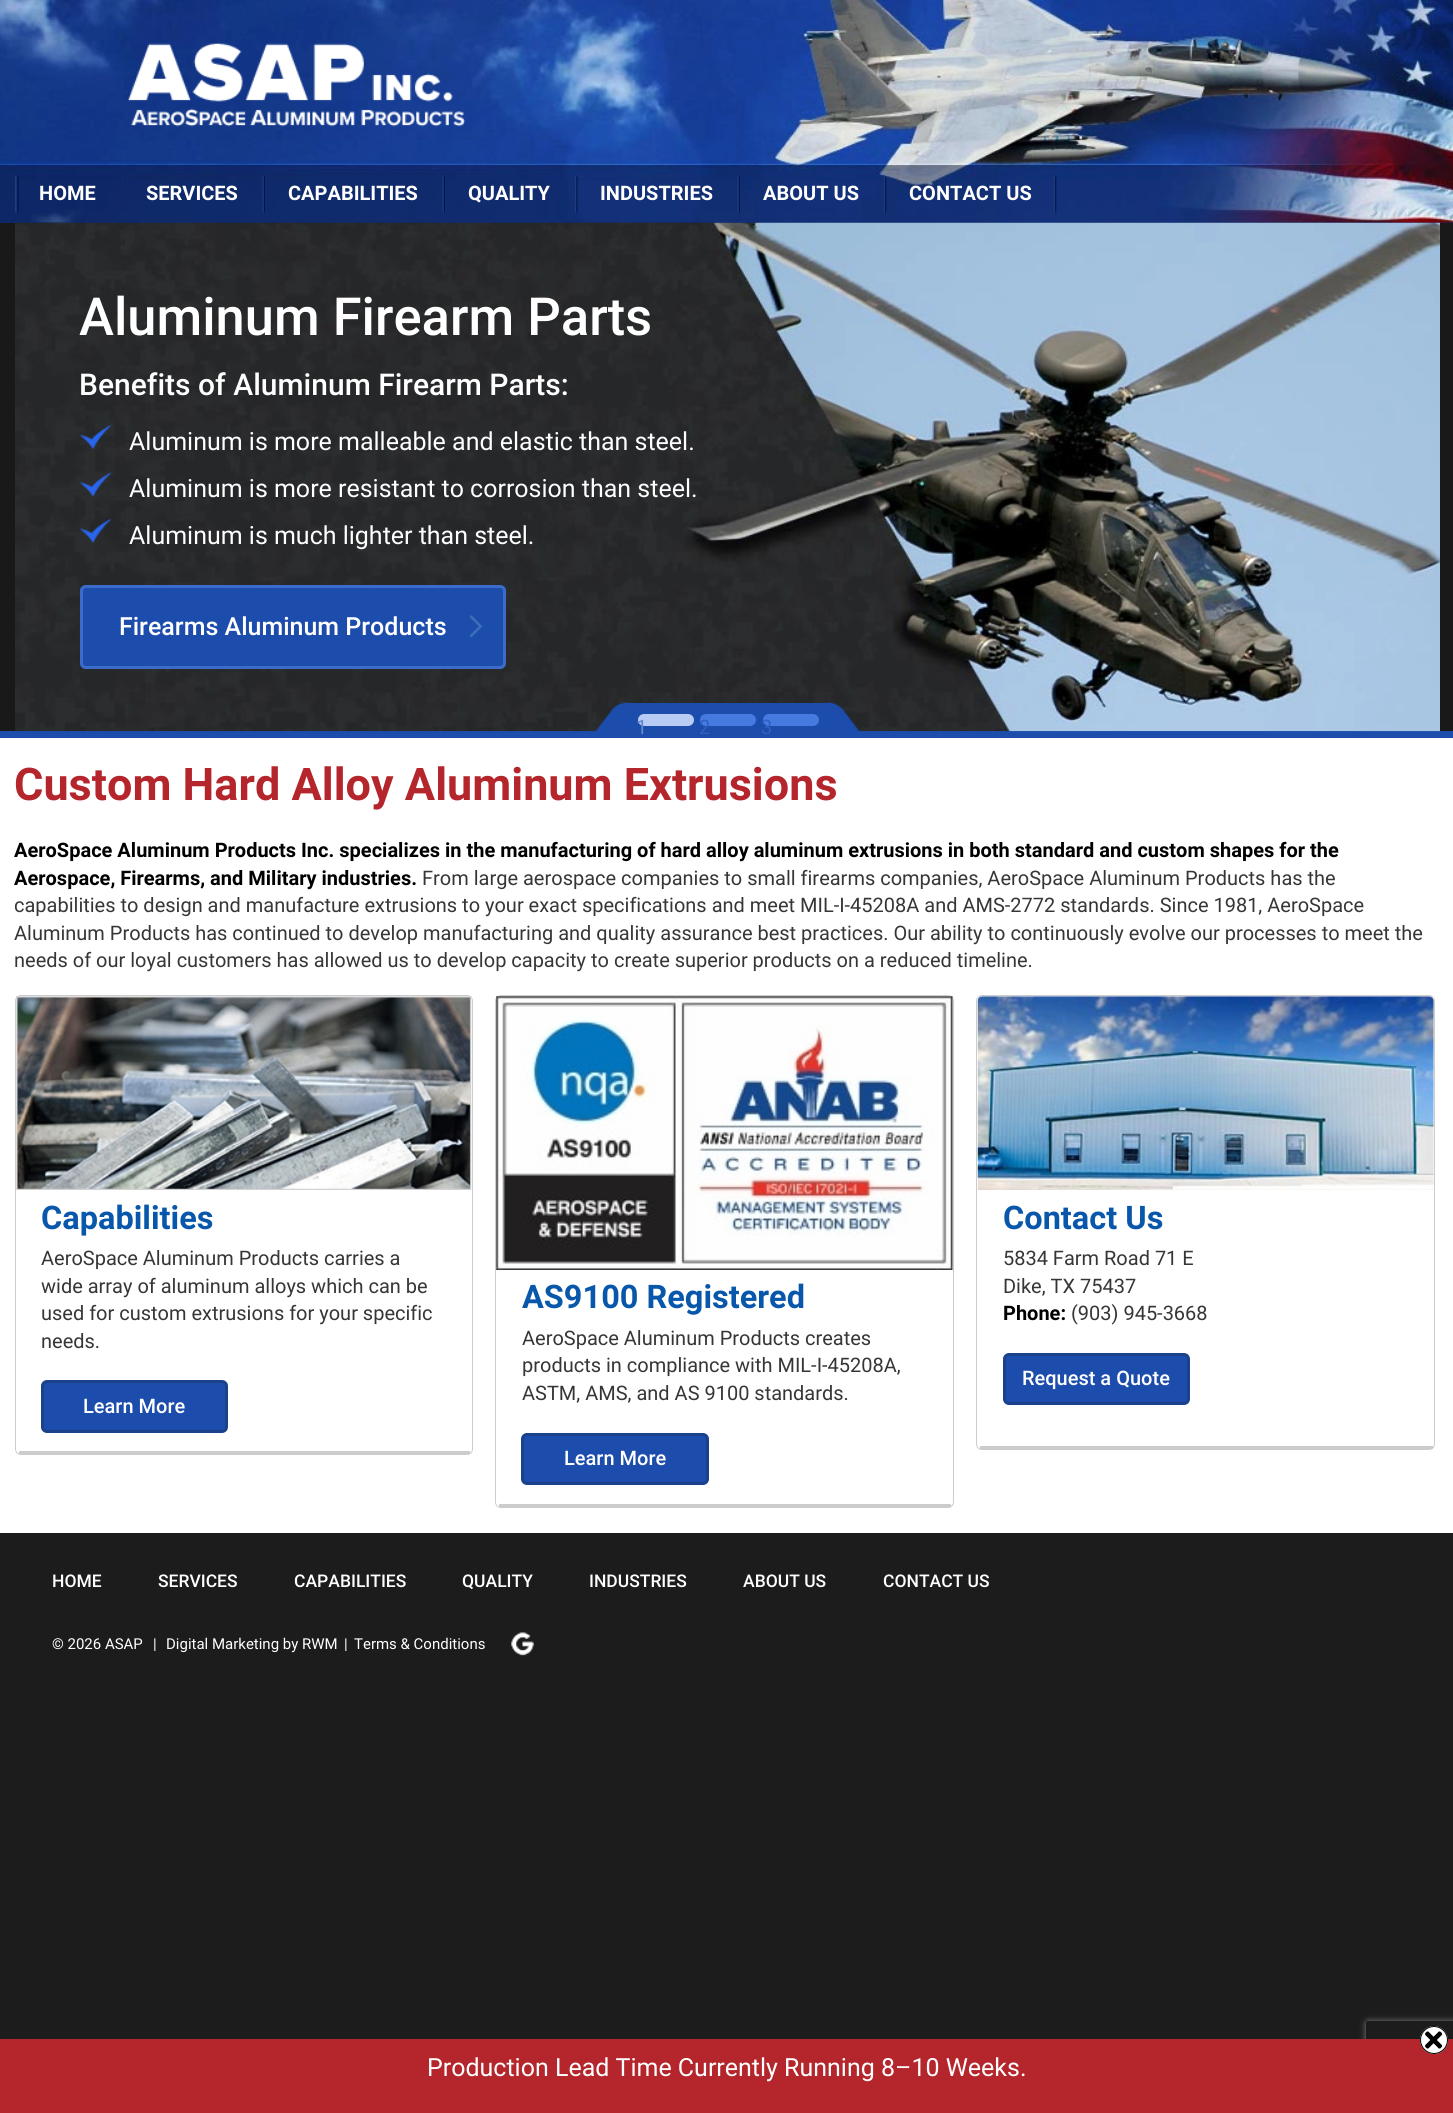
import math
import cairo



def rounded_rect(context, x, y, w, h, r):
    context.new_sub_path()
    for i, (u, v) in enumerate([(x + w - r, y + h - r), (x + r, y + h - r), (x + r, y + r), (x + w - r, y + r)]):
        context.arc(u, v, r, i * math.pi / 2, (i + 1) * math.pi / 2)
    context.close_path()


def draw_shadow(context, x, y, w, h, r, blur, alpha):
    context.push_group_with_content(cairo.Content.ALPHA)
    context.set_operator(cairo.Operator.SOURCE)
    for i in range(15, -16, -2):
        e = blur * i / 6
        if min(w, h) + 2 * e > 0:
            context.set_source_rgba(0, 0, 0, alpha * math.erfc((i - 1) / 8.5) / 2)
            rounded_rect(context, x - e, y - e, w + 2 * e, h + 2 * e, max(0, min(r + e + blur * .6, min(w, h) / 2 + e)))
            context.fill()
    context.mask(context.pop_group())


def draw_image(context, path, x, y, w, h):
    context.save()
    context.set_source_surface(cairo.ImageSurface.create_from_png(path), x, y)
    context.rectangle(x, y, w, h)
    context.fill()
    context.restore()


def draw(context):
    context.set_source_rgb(28 / 255, 28 / 255, 28 / 255)
    context.paint()
    context.set_source_rgb(14 / 255, 38 / 255, 102 / 255)
    context.rectangle(0, 222, 1453, 1)
    context.fill()
    draw_image(context, "images/1.png", 0, 0, 1453, 223)
    draw_image(context, "images/2.png", 127, 43, 338, 84)
    draw_image(context, "images/3.png", 1053, 176, 4, 37)
    draw_image(context, "images/4.png", 15, 176, 4, 37)
    context.set_source_rgb(17 / 255, 41 / 255, 103 / 255)
    context.rectangle(121, 176, 3, 4)
    context.fill()
    draw_image(context, "images/5.png", 262, 176, 3, 37)
    draw_image(context, "images/6.png", 442, 176, 3, 37)
    draw_image(context, "images/7.png", 575, 176, 3, 37)
    draw_image(context, "images/8.png", 737, 176, 3, 37)
    draw_image(context, "images/9.png", 883, 176, 4, 37)
    context.set_source_rgb(1, 1, 1)
    context.rectangle(0, 738, 1453, 795)
    context.fill()
    context.set_source_rgb(25 / 255, 25 / 255, 25 / 255)
    context.rectangle(0, 223, 1453, 508)
    context.fill()
    context.set_source_rgb(29 / 255, 77 / 255, 172 / 255)
    context.rectangle(0, 731, 1453, 7)
    context.fill()
    draw_image(context, "images/10.png", 15, 222, 1425, 510)
    draw_image(context, "images/11.png", 80, 425, 32, 24)
    draw_image(context, "images/12.png", 80, 472, 32, 25)
    draw_image(context, "images/13.png", 80, 518, 32, 25)
    rounded_rect(context, 80, 585, 426, 84, 6)
    context.fill()
    draw_image(context, "images/14.png", 470, 615, 13, 23)
    rounded_rect(context, 81.5, 586.5, 423, 81, 4.5)
    context.set_source_rgb(59 / 255, 108 / 255, 204 / 255)
    context.set_line_width(3)
    context.stroke()
    context.set_source_rgb(29 / 255, 77 / 255, 172 / 255)
    context.rectangle(625, 703, 206, 28)
    context.fill()
    draw_image(context, "images/15.png", 595, 702, 32, 30)
    context.set_source_rgb(184 / 255, 203 / 255, 245 / 255)
    rounded_rect(context, 638, 714, 56, 12, 6)
    context.fill()
    context.set_source_rgb(70 / 255, 122 / 255, 225 / 255)
    rounded_rect(context, 700, 714, 56, 12, 6)
    context.fill()
    rounded_rect(context, 763, 714, 56, 12, 6)
    context.fill()
    draw_image(context, "images/16.png", 828, 702, 32, 30)
    rounded_rect(context, 15.5, 995.5, 457, 459, 5.5)
    context.set_source_rgb(204 / 255, 204 / 255, 204 / 255)
    context.set_line_width(1)
    context.stroke()
    context.rectangle(19, 1451, 451, 3)
    context.fill()
    draw_image(context, "images/17.png", 16, 996, 456, 194)
    context.set_source_rgb(29 / 255, 77 / 255, 172 / 255)
    rounded_rect(context, 42.5, 1381.5, 184, 50, 4.5)
    context.fill_preserve()
    context.set_source_rgb(28 / 255, 65 / 255, 139 / 255)
    context.set_line_width(3)
    context.stroke()
    rounded_rect(context, 495.5, 995.5, 458, 512, 5.5)
    context.set_source_rgb(204 / 255, 204 / 255, 204 / 255)
    context.set_line_width(1)
    context.stroke()
    context.rectangle(499, 1504, 452, 3)
    context.fill()
    draw_image(context, "images/18.png", 496, 996, 457, 274)
    context.set_source_rgb(29 / 255, 77 / 255, 172 / 255)
    rounded_rect(context, 522.5, 1434.5, 185, 49, 4.5)
    context.fill_preserve()
    context.set_source_rgb(28 / 255, 65 / 255, 139 / 255)
    context.set_line_width(3)
    context.stroke()
    rounded_rect(context, 976.5, 995.5, 458, 454, 5.5)
    context.set_source_rgb(204 / 255, 204 / 255, 204 / 255)
    context.set_line_width(1)
    context.stroke()
    context.rectangle(980, 1446, 453, 3)
    context.fill()
    draw_image(context, "images/19.png", 977, 996, 457, 194)
    context.set_source_rgb(29 / 255, 77 / 255, 172 / 255)
    rounded_rect(context, 1004.5, 1354.5, 184, 49, 4.5)
    context.fill_preserve()
    context.set_source_rgb(28 / 255, 65 / 255, 139 / 255)
    context.set_line_width(3)
    context.stroke()
    draw_image(context, "images/20.png", 511, 1632, 23, 24)
    context.save()
    context.set_fill_rule(cairo.FillRule.EVEN_ODD)
    context.new_path()
    context.move_to(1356, 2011)
    context.line_to(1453, 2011)
    context.line_to(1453, 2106)
    context.line_to(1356, 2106)
    context.close_path()
    context.move_to(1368.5, 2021)
    context.line_to(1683.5, 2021)
    context.curve_to(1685, 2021, 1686, 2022, 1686, 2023.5)
    context.line_to(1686, 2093.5)
    context.curve_to(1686, 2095, 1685, 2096, 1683.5, 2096)
    context.line_to(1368.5, 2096)
    context.curve_to(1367, 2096, 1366, 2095, 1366, 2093.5)
    context.line_to(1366, 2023.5)
    context.curve_to(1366, 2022, 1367, 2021, 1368.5, 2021)
    context.close_path()
    context.clip()
    context.set_source_rgb(128 / 255, 128 / 255, 128 / 255)
    draw_shadow(context, 1366, 2021, 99, 75, 2.5, 3, 1)
    context.restore()
    context.set_source_rgb(180 / 255, 38 / 255, 44 / 255)
    context.rectangle(0, 2039, 1453, 74)
    context.fill()
    context.set_source_rgb(1, 1, 1)
    context.arc(1434, 2040, 14, 0, 2 * math.pi)
    context.fill()
    draw_image(context, "images/21.png", 1425, 2031, 18, 18)
    context.arc(1434, 2040, 13.5, 0, 2 * math.pi)
    context.set_source_rgb(0, 0, 0)
    context.set_line_width(1)
    context.stroke()
    context.select_font_face("Roboto", cairo.FontSlant.NORMAL, cairo.FontWeight.BOLD)
    context.set_font_size(20)
    context.set_source_rgb(1, 1, 1)
    context.move_to(39, 200)
    context.show_text("HOME")
    context.move_to(146, 200)
    context.show_text("SERVICES")
    context.move_to(288, 200)
    context.show_text("CAPABILITIES")
    context.move_to(468, 200)
    context.show_text("QUALITY")
    context.move_to(600, 200)
    context.show_text("INDUSTRIES")
    context.move_to(763, 200)
    context.show_text("ABOUT US")
    context.move_to(909, 200)
    context.show_text("CONTACT US")
    context.select_font_face("Roboto Medium")
    context.set_font_size(52.5)
    context.move_to(79, 335)
    context.show_text("Aluminum Firearm Parts")
    context.set_font_size(30)
    context.move_to(79, 395)
    context.show_text("Benefits of Aluminum Firearm Parts:")
    context.select_font_face("Roboto")
    context.set_font_size(25)
    context.move_to(129, 450)
    context.show_text("Aluminum is more malleable and elastic than steel.")
    context.move_to(129, 497)
    context.show_text("Aluminum is more resistant to corrosion than steel.")
    context.move_to(129, 544)
    context.show_text("Aluminum is much lighter than steel.")
    context.select_font_face("Roboto Medium")
    context.move_to(119, 635)
    context.show_text("Firearms Aluminum Products")
    context.select_font_face("Roboto")
    context.set_font_size(20)
    context.set_source_rgb(101 / 255, 135 / 255, 205 / 255)
    context.move_to(636, 734)
    context.show_text("1")
    context.set_source_rgb(47 / 255, 96 / 255, 195 / 255)
    context.move_to(699, 734)
    context.show_text("2")
    context.move_to(761, 734)
    context.show_text("3")
    context.select_font_face("Roboto", cairo.FontSlant.NORMAL, cairo.FontWeight.BOLD)
    context.set_font_size(45)
    context.set_source_rgb(180 / 255, 38 / 255, 44 / 255)
    context.move_to(14, 800)
    context.show_text("Custom Hard Alloy Aluminum Extrusions")
    context.set_font_size(20)
    context.set_source_rgb(0, 0, 0)
    context.move_to(14, 857)
    context.show_text("AeroSpace Aluminum Products Inc. specializes in the manufacturing of hard alloy aluminum extrusions in both standard and custom shapes for the")
    context.move_to(14, 885)
    context.show_text("Aerospace, Firearms, and Military industries.")
    context.select_font_face("Roboto")
    context.set_source_rgb(54 / 255, 54 / 255, 54 / 255)
    context.move_to(422, 885)
    context.show_text("From large aerospace companies to small firearms companies, AeroSpace Aluminum Products has the")
    context.move_to(14, 912)
    context.show_text("capabilities to design and manufacture extrusions to your exact specifications and meet MIL-I-45208A and AMS-2772 standards. Since 1981, AeroSpace")
    context.move_to(14, 940)
    context.show_text("Aluminum Products has continued to develop manufacturing and quality assurance best practices. Our ability to continuously evolve our processes to meet the")
    context.move_to(14, 967)
    context.show_text("needs of our loyal customers has allowed us to develop capacity to create superior products on a reduced timeline.")
    context.select_font_face("Roboto", cairo.FontSlant.NORMAL, cairo.FontWeight.BOLD)
    context.set_font_size(32.5)
    context.set_source_rgb(9 / 255, 87 / 255, 170 / 255)
    context.move_to(41, 1229)
    context.show_text("Capabilities")
    context.select_font_face("Roboto")
    context.set_font_size(20)
    context.set_source_rgb(54 / 255, 54 / 255, 54 / 255)
    context.move_to(41, 1265)
    context.show_text("AeroSpace Aluminum Products carries a")
    context.move_to(41, 1293)
    context.show_text("wide array of aluminum alloys which can be")
    context.move_to(41, 1320)
    context.show_text("used for custom extrusions for your specific")
    context.move_to(41, 1348)
    context.show_text("needs.")
    context.select_font_face("Roboto Medium")
    context.set_source_rgb(1, 1, 1)
    context.move_to(83, 1413)
    context.show_text("Learn More")
    context.select_font_face("Roboto", cairo.FontSlant.NORMAL, cairo.FontWeight.BOLD)
    context.set_font_size(32.5)
    context.set_source_rgb(9 / 255, 87 / 255, 170 / 255)
    context.move_to(522, 1308)
    context.show_text("AS9100 Registered")
    context.select_font_face("Roboto")
    context.set_font_size(20)
    context.set_source_rgb(54 / 255, 54 / 255, 54 / 255)
    context.move_to(522, 1345)
    context.show_text("AeroSpace Aluminum Products creates")
    context.move_to(522, 1372)
    context.show_text("products in compliance with MIL-I-45208A,")
    context.move_to(522, 1400)
    context.show_text("ASTM, AMS, and AS 9100 standards.")
    context.select_font_face("Roboto Medium")
    context.set_source_rgb(1, 1, 1)
    context.move_to(564, 1465)
    context.show_text("Learn More")
    context.select_font_face("Roboto", cairo.FontSlant.NORMAL, cairo.FontWeight.BOLD)
    context.set_font_size(32.5)
    context.set_source_rgb(9 / 255, 87 / 255, 170 / 255)
    context.move_to(1003, 1229)
    context.show_text("Contact Us")
    context.select_font_face("Roboto")
    context.set_font_size(20)
    context.set_source_rgb(54 / 255, 54 / 255, 54 / 255)
    context.move_to(1003, 1265)
    context.show_text("5834 Farm Road 71 E")
    context.move_to(1003, 1293)
    context.show_text("Dike, TX 75437")
    context.select_font_face("Roboto", cairo.FontSlant.NORMAL, cairo.FontWeight.BOLD)
    context.set_source_rgb(0, 0, 0)
    context.move_to(1003, 1320)
    context.show_text("Phone:")
    context.select_font_face("Roboto")
    context.set_source_rgb(54 / 255, 54 / 255, 54 / 255)
    context.move_to(1071, 1320)
    context.show_text("(903) 945-3668")
    context.select_font_face("Roboto Medium")
    context.set_source_rgb(1, 1, 1)
    context.move_to(1022, 1385)
    context.show_text("Request a Quote")
    context.set_font_size(17.5)
    context.move_to(52, 1587)
    context.show_text("HOME")
    context.move_to(158, 1587)
    context.show_text("SERVICES")
    context.move_to(294, 1587)
    context.show_text("CAPABILITIES")
    context.move_to(462, 1587)
    context.show_text("QUALITY")
    context.move_to(589, 1587)
    context.show_text("INDUSTRIES")
    context.move_to(743, 1587)
    context.show_text("ABOUT US")
    context.move_to(883, 1587)
    context.show_text("CONTACT US")
    context.select_font_face("Roboto")
    context.set_font_size(15)
    context.move_to(52, 1649)
    context.show_text("© 2026 ASAP")
    context.move_to(153, 1649)
    context.show_text("|")
    context.move_to(166, 1649)
    context.show_text("Digital Marketing by RWM")
    context.move_to(344, 1649)
    context.show_text("|")
    context.move_to(354, 1649)
    context.show_text("Terms & Conditions")
    context.set_font_size(25)
    context.move_to(427, 2076)
    context.show_text("Production Lead Time Currently Running 8–10 Weeks.")


surface = cairo.ImageSurface(cairo.Format.RGB24, 1453, 2113)
context = cairo.Context(surface)
options = cairo.FontOptions()
options.set_hint_metrics(cairo.HintMetrics.OFF)
options.set_hint_style(cairo.HintStyle.NONE)
context.set_font_options(options)
context.set_miter_limit(4)
draw(context)
surface.write_to_png("out.png")
